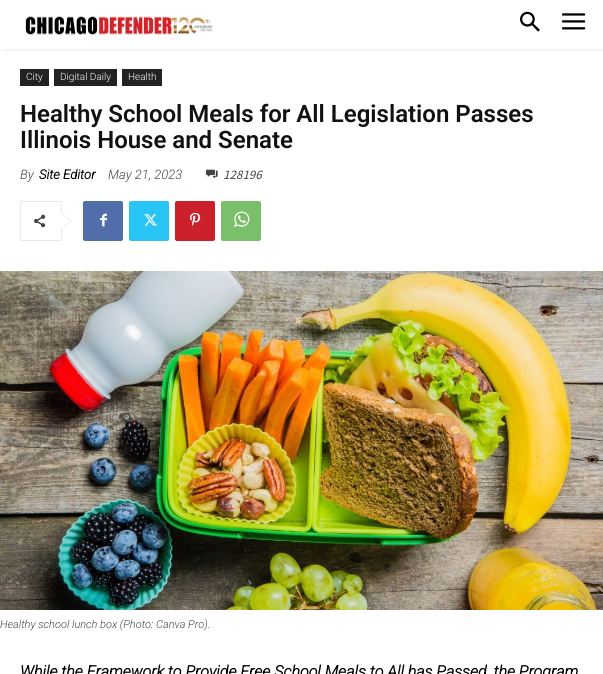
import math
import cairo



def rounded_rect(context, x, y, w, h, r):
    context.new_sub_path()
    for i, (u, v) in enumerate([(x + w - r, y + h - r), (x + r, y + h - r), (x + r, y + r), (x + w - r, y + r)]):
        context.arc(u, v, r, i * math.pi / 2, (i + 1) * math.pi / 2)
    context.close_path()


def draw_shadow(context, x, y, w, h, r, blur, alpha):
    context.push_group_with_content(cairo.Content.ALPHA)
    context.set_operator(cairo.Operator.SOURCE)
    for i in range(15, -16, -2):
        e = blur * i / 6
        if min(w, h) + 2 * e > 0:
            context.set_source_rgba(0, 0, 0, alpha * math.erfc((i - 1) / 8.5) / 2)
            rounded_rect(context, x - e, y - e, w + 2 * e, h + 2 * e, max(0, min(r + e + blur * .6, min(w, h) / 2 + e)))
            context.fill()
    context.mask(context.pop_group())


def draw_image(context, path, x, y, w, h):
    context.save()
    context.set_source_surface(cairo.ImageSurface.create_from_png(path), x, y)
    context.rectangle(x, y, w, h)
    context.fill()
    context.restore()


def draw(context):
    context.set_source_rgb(1, 1, 1)
    context.paint()
    draw_image(context, "images/1.png", 25, 16, 188, 19)
    draw_image(context, "images/2.png", 520, 11, 20, 21)
    draw_image(context, "images/3.png", 562, 13, 24, 17)
    context.save()
    context.rectangle(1, 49, 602, 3)
    context.clip()
    context.set_source_rgb(0, 0, 0)
    draw_shadow(context, 1, 2, 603, 49, 0, 2, 0.06)
    context.restore()
    context.set_source_rgb(34 / 255, 34 / 255, 34 / 255)
    context.rectangle(20, 69, 29, 17)
    context.fill()
    context.rectangle(54, 69, 63, 17)
    context.fill()
    context.rectangle(122, 69, 40, 17)
    context.fill()
    draw_image(context, "images/4.png", 206, 169, 12, 10)
    rounded_rect(context, 20.5, 201.5, 41, 39, 1.5)
    context.set_source_rgb(233 / 255, 233 / 255, 233 / 255)
    context.set_line_width(1)
    context.stroke()
    context.new_path()
    context.move_to(61, 230)
    context.line_to(61, 212)
    context.line_to(72, 221)
    context.close_path()
    context.fill()
    draw_image(context, "images/5.png", 34, 214, 12, 14)
    context.set_source_rgb(1, 1, 1)
    context.new_path()
    context.move_to(61, 229)
    context.line_to(61, 213)
    context.line_to(71, 221)
    context.close_path()
    context.fill()
    context.set_source_rgb(81 / 255, 110 / 255, 171 / 255)
    rounded_rect(context, 83, 201, 40, 40, 2)
    context.fill()
    draw_image(context, "images/6.png", 100, 213, 7, 14)
    context.set_source_rgb(41 / 255, 197 / 255, 246 / 255)
    rounded_rect(context, 129, 201, 40, 40, 2)
    context.fill()
    draw_image(context, "images/7.png", 144, 214, 13, 12)
    context.set_source_rgb(202 / 255, 33 / 255, 42 / 255)
    rounded_rect(context, 175, 201, 40, 40, 2)
    context.fill()
    draw_image(context, "images/8.png", 190, 212, 11, 14)
    context.set_source_rgb(123 / 255, 191 / 255, 106 / 255)
    rounded_rect(context, 221, 201, 40, 40, 2)
    context.fill()
    draw_image(context, "images/9.png", 234, 211, 16, 16)
    draw_image(context, "images/10.png", 0, 271, 603, 339)
    context.select_font_face("Roboto Light")
    context.set_font_size(10)
    context.set_source_rgb(1, 1, 1)
    context.move_to(26, 80)
    context.show_text("City")
    context.move_to(60, 80)
    context.show_text("Digital Daily")
    context.move_to(128, 80)
    context.show_text("Health")
    context.select_font_face("Roboto SemiBold")
    context.set_font_size(24)
    context.set_source_rgb(17 / 255, 17 / 255, 17 / 255)
    context.move_to(20, 122)
    context.show_text("Healthy School Meals for All Legislation Passes")
    context.move_to(20, 148)
    context.show_text("Illinois House and Senate")
    context.select_font_face("Roboto Light", cairo.FontSlant.ITALIC)
    context.set_font_size(13)
    context.set_source_rgb(68 / 255, 68 / 255, 68 / 255)
    context.move_to(20, 179)
    context.show_text("By")
    context.select_font_face("Roboto", cairo.FontSlant.ITALIC, cairo.FontWeight.BOLD)
    context.set_source_rgb(0, 0, 0)
    context.move_to(39, 179)
    context.show_text("Site Editor")
    context.select_font_face("Roboto Light", cairo.FontSlant.ITALIC)
    context.set_source_rgb(68 / 255, 68 / 255, 68 / 255)
    context.move_to(108, 179)
    context.show_text("May 21, 2023")
    context.select_font_face("Source Sans Pro", cairo.FontSlant.ITALIC)
    context.move_to(223, 179)
    context.show_text("128196")
    context.select_font_face("Roboto Light", cairo.FontSlant.ITALIC)
    context.set_font_size(11)
    context.move_to(0, 628)
    context.show_text("Healthy school lunch box (Photo: Canva Pro).")
    context.select_font_face("Roboto", cairo.FontSlant.ITALIC, cairo.FontWeight.BOLD)
    context.set_font_size(16)
    context.set_source_rgb(0, 0, 0)
    context.move_to(20, 677)
    context.show_text("While the Framework to Provide Free School Meals to All has Passed, the Program")


surface = cairo.ImageSurface(cairo.Format.RGB24, 603, 674)
context = cairo.Context(surface)
options = cairo.FontOptions()
options.set_hint_metrics(cairo.HintMetrics.OFF)
options.set_hint_style(cairo.HintStyle.NONE)
context.set_font_options(options)
context.set_miter_limit(4)
draw(context)
surface.write_to_png("out.png")
